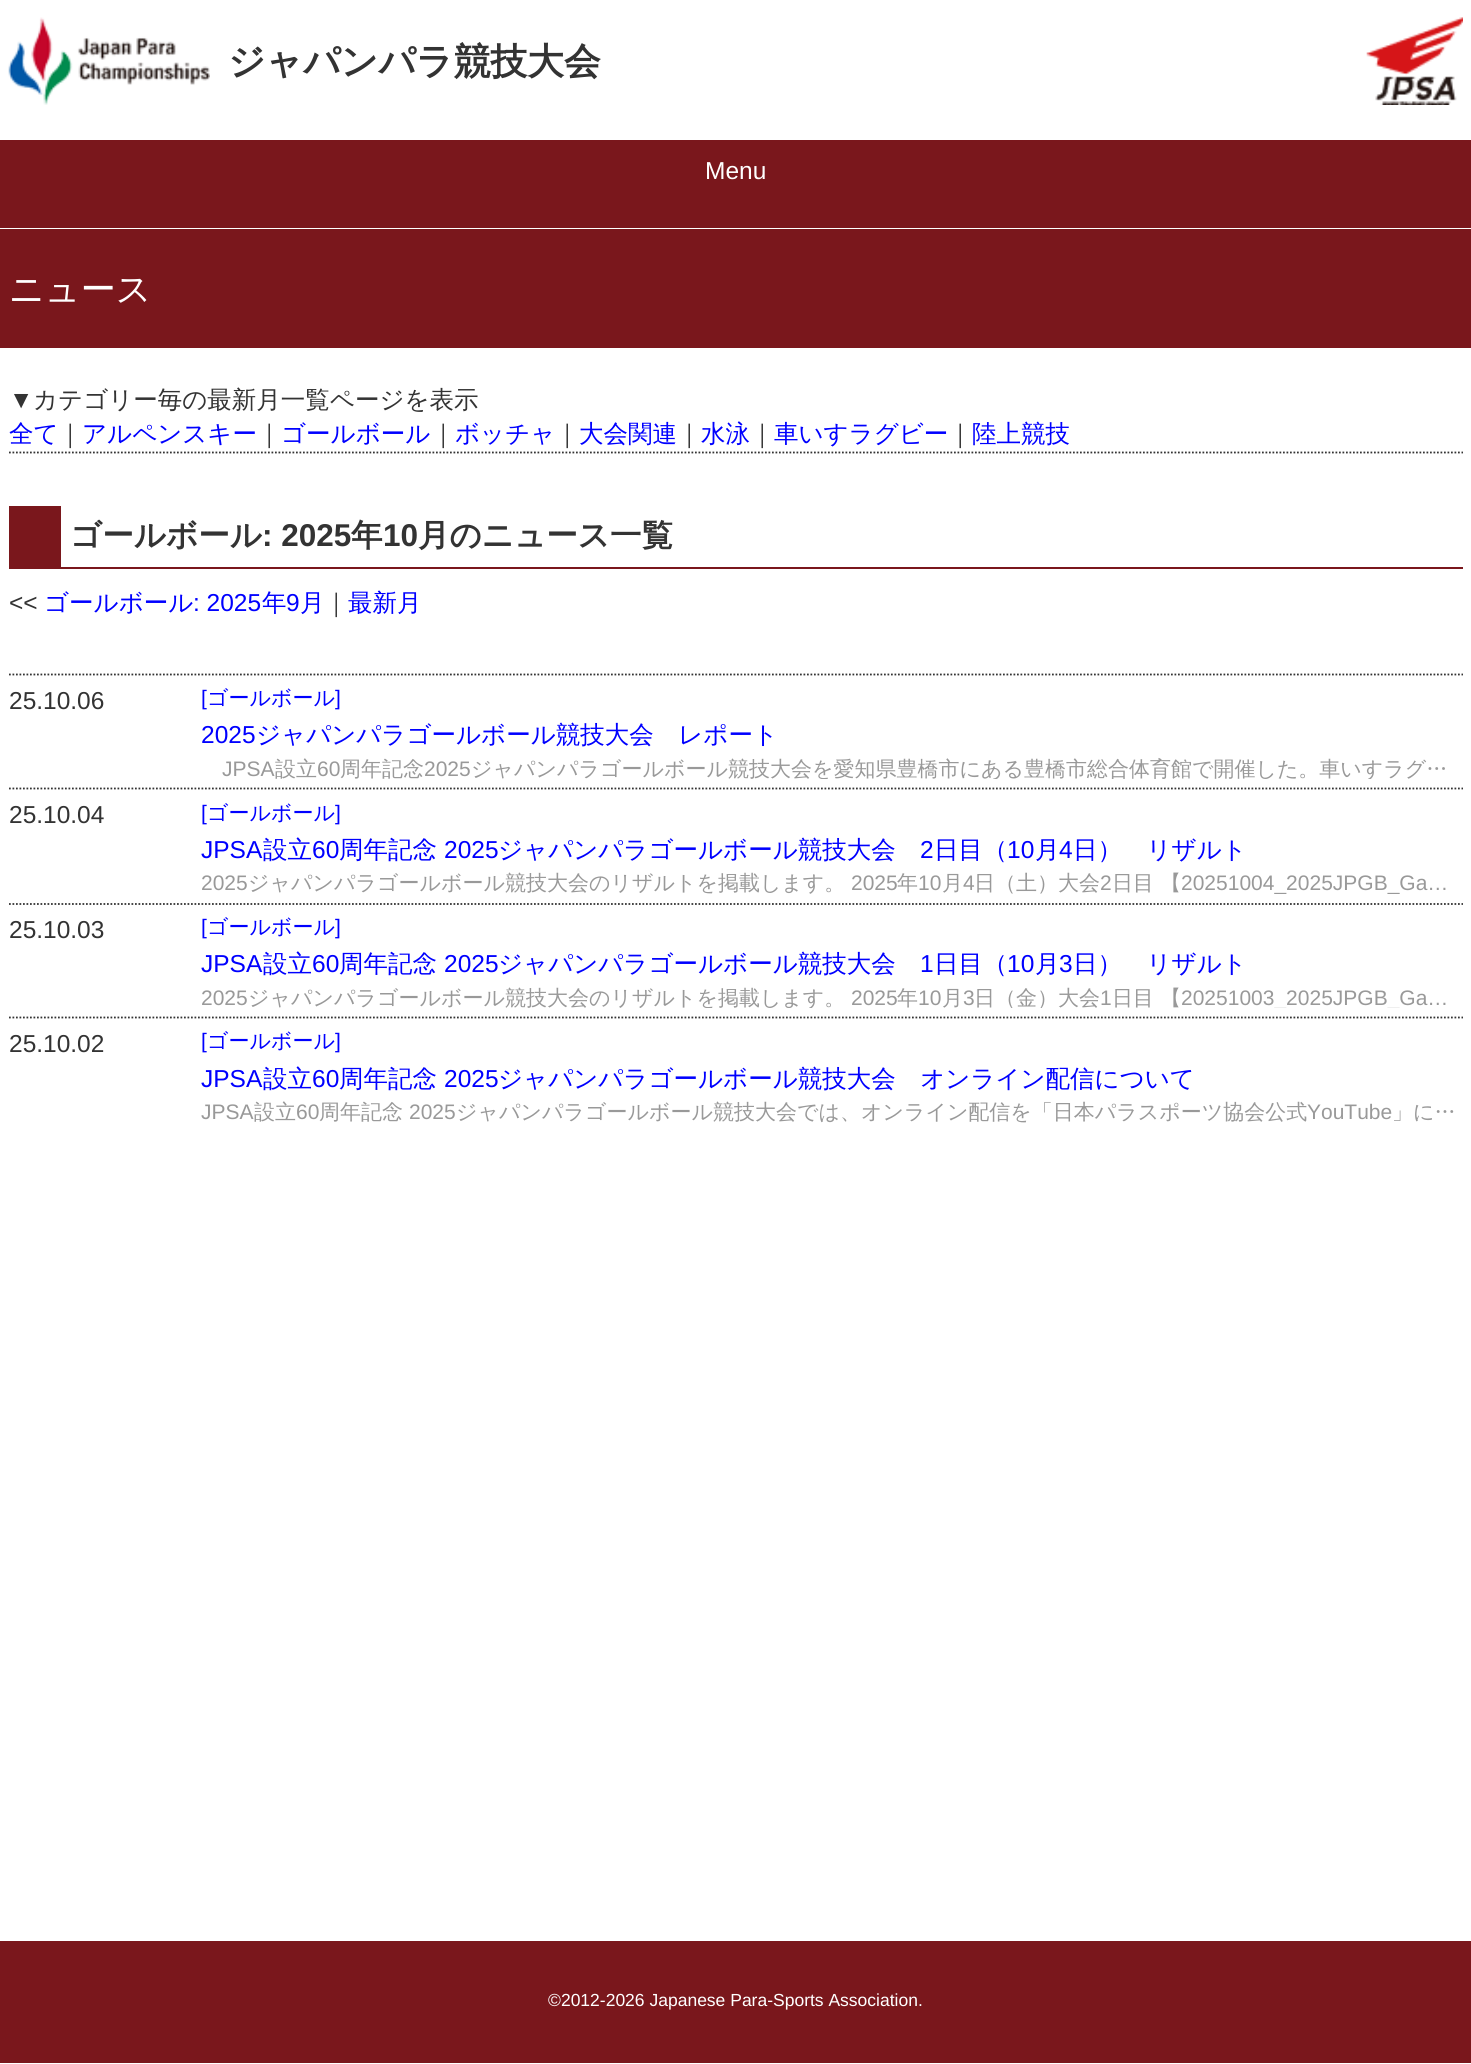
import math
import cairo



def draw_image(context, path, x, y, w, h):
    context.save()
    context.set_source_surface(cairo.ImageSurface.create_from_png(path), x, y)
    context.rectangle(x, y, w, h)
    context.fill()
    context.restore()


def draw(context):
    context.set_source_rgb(1, 1, 1)
    context.paint()
    draw_image(context, "images/1.png", 8, 17, 202, 88)
    draw_image(context, "images/2.png", 1366, 17, 97, 88)
    context.set_source_rgb(122 / 255, 23 / 255, 28 / 255)
    context.rectangle(0, 140, 1471, 88)
    context.fill()
    context.rectangle(0, 229, 1471, 119)
    context.fill()
    context.new_path()
    context.move_to(9, 452.5)
    context.line_to(1463, 452.5)
    context.set_source_rgb(51 / 255, 51 / 255, 51 / 255)
    context.set_line_width(1.8)
    context.set_dash([1.75, 1.75])
    context.stroke()
    context.set_source_rgb(122 / 255, 23 / 255, 28 / 255)
    context.rectangle(61, 567, 1402, 2)
    context.fill()
    context.rectangle(9, 506, 52, 63)
    context.fill()
    context.new_path()
    context.move_to(9, 674.5)
    context.line_to(1463, 674.5)
    context.set_source_rgb(51 / 255, 51 / 255, 51 / 255)
    context.stroke()
    context.new_path()
    context.move_to(9, 788.5)
    context.line_to(1463, 788.5)
    context.stroke()
    context.new_path()
    context.move_to(9, 904)
    context.line_to(1463, 904)
    context.stroke()
    context.new_path()
    context.move_to(9, 1017.5)
    context.line_to(1463, 1017.5)
    context.stroke()
    context.set_source_rgb(122 / 255, 23 / 255, 28 / 255)
    context.rectangle(0, 1941, 1471, 122)
    context.fill()
    context.select_font_face("WenQuanYi Zen Hei", cairo.FontSlant.NORMAL, cairo.FontWeight.BOLD)
    context.set_font_size(36.75)
    context.set_source_rgb(51 / 255, 51 / 255, 51 / 255)
    context.move_to(228, 74)
    context.show_text("ジャパンパラ競技大会")
    context.select_font_face("Liberation Sans")
    context.set_font_size(24.5)
    context.set_source_rgb(1, 1, 1)
    context.move_to(705, 179)
    context.show_text("Menu")
    context.select_font_face("WenQuanYi Zen Hei Medium")
    context.set_font_size(35)
    context.move_to(9, 301)
    context.show_text("ニュース")
    context.select_font_face("Liberation Sans")
    context.set_font_size(24.5)
    context.set_source_rgb(51 / 255, 51 / 255, 51 / 255)
    context.move_to(9, 408)
    context.show_text("▼")
    context.select_font_face("WenQuanYi Zen Hei Medium")
    context.move_to(33, 408)
    context.show_text("カテゴリー毎の最新月一覧ページを表示")
    context.set_source_rgb(0, 0, 1)
    context.move_to(9, 442)
    context.show_text("全て")
    context.set_source_rgb(51 / 255, 51 / 255, 51 / 255)
    context.move_to(58, 442)
    context.show_text("｜")
    context.set_source_rgb(0, 0, 1)
    context.move_to(82, 442)
    context.show_text("アルペンスキー")
    context.set_source_rgb(51 / 255, 51 / 255, 51 / 255)
    context.move_to(257, 442)
    context.show_text("｜")
    context.set_source_rgb(0, 0, 1)
    context.move_to(281, 442)
    context.show_text("ゴールボール")
    context.set_source_rgb(51 / 255, 51 / 255, 51 / 255)
    context.move_to(431, 442)
    context.show_text("｜")
    context.set_source_rgb(0, 0, 1)
    context.move_to(455, 442)
    context.show_text("ボッチャ")
    context.set_source_rgb(51 / 255, 51 / 255, 51 / 255)
    context.move_to(555, 442)
    context.show_text("｜")
    context.set_source_rgb(0, 0, 1)
    context.move_to(579, 442)
    context.show_text("大会関連")
    context.set_source_rgb(51 / 255, 51 / 255, 51 / 255)
    context.move_to(677, 442)
    context.show_text("｜")
    context.set_source_rgb(0, 0, 1)
    context.move_to(701, 442)
    context.show_text("水泳")
    context.set_source_rgb(51 / 255, 51 / 255, 51 / 255)
    context.move_to(750, 442)
    context.show_text("｜")
    context.set_source_rgb(0, 0, 1)
    context.move_to(774, 442)
    context.show_text("車いすラグビー")
    context.set_source_rgb(51 / 255, 51 / 255, 51 / 255)
    context.move_to(948, 442)
    context.show_text("｜")
    context.set_source_rgb(0, 0, 1)
    context.move_to(972, 442)
    context.show_text("陸上競技")
    context.select_font_face("WenQuanYi Zen Hei", cairo.FontSlant.NORMAL, cairo.FontWeight.BOLD)
    context.set_font_size(31.5)
    context.set_source_rgb(51 / 255, 51 / 255, 51 / 255)
    context.move_to(70, 546)
    context.show_text("ゴールボール")
    context.select_font_face("Liberation Sans", cairo.FontSlant.NORMAL, cairo.FontWeight.BOLD)
    context.move_to(262, 546)
    context.show_text(": 2025")
    context.select_font_face("WenQuanYi Zen Hei", cairo.FontSlant.NORMAL, cairo.FontWeight.BOLD)
    context.move_to(351, 546)
    context.show_text("年")
    context.select_font_face("Liberation Sans", cairo.FontSlant.NORMAL, cairo.FontWeight.BOLD)
    context.move_to(383, 546)
    context.show_text("10")
    context.select_font_face("WenQuanYi Zen Hei", cairo.FontSlant.NORMAL, cairo.FontWeight.BOLD)
    context.move_to(418, 546)
    context.show_text("月のニュース一覧")
    context.select_font_face("Liberation Sans")
    context.set_font_size(24.5)
    context.move_to(9, 611)
    context.show_text("<<")
    context.select_font_face("WenQuanYi Zen Hei Medium")
    context.set_source_rgb(0, 0, 1)
    context.move_to(44, 611)
    context.show_text("ゴールボール")
    context.select_font_face("Liberation Sans")
    context.move_to(193, 611)
    context.show_text(": 2025")
    context.select_font_face("WenQuanYi Zen Hei Medium")
    context.move_to(262, 611)
    context.show_text("年")
    context.select_font_face("Liberation Sans")
    context.move_to(286, 611)
    context.show_text("9")
    context.select_font_face("WenQuanYi Zen Hei Medium")
    context.move_to(300, 611)
    context.show_text("月")
    context.set_source_rgb(51 / 255, 51 / 255, 51 / 255)
    context.move_to(324, 611)
    context.show_text("｜")
    context.set_source_rgb(0, 0, 1)
    context.move_to(348, 611)
    context.show_text("最新月")
    context.select_font_face("Liberation Sans")
    context.set_source_rgb(51 / 255, 51 / 255, 51 / 255)
    context.move_to(9, 709)
    context.show_text("25.10.06")
    context.set_font_size(21)
    context.set_source_rgb(0, 0, 1)
    context.move_to(201, 705)
    context.show_text("[")
    context.select_font_face("WenQuanYi Zen Hei Medium")
    context.move_to(207, 705)
    context.show_text("ゴールボール")
    context.select_font_face("Liberation Sans")
    context.move_to(335, 705)
    context.show_text("]")
    context.set_font_size(24.5)
    context.move_to(201, 743)
    context.show_text("2025")
    context.select_font_face("WenQuanYi Zen Hei Medium")
    context.move_to(256, 743)
    context.show_text("ジャパンパラゴールボール競技大会　レポート")
    context.select_font_face("Liberation Sans")
    context.set_font_size(21)
    context.set_source_rgb(153 / 255, 153 / 255, 153 / 255)
    context.move_to(222, 776)
    context.show_text("JPSA")
    context.select_font_face("WenQuanYi Zen Hei Medium")
    context.move_to(275, 776)
    context.show_text("設立")
    context.select_font_face("Liberation Sans")
    context.move_to(317, 776)
    context.show_text("60")
    context.select_font_face("WenQuanYi Zen Hei Medium")
    context.move_to(340, 776)
    context.show_text("周年記念")
    context.select_font_face("Liberation Sans")
    context.move_to(424, 776)
    context.show_text("2025")
    context.save()
    context.rectangle(201, 753, 1262, 26)
    context.clip()
    context.select_font_face("WenQuanYi Zen Hei Medium")
    context.move_to(471, 776)
    context.show_text("ジャパンパラゴールボール競技大会を愛知県豊橋市にある豊橋市総合体育館で開催した。車いすラグ…")
    context.restore()
    context.set_font_size(24.5)
    context.set_source_rgb(51 / 255, 51 / 255, 51 / 255)
    context.move_to(9, 823)
    context.show_text("25.10.04")
    context.set_font_size(21)
    context.set_source_rgb(0, 0, 1)
    context.move_to(201, 820)
    context.show_text("[")
    context.select_font_face("WenQuanYi Zen Hei Medium")
    context.move_to(207, 820)
    context.show_text("ゴールボール")
    context.select_font_face("Liberation Sans")
    context.move_to(335, 820)
    context.show_text("]")
    context.set_font_size(24.5)
    context.move_to(201, 858)
    context.show_text("JPSA")
    context.select_font_face("WenQuanYi Zen Hei Medium")
    context.move_to(263, 858)
    context.show_text("設立")
    context.select_font_face("Liberation Sans")
    context.move_to(312, 858)
    context.show_text("60")
    context.select_font_face("WenQuanYi Zen Hei Medium")
    context.move_to(339, 858)
    context.show_text("周年記念")
    context.select_font_face("Liberation Sans")
    context.move_to(444, 858)
    context.show_text("2025")
    context.select_font_face("WenQuanYi Zen Hei Medium")
    context.move_to(498, 858)
    context.show_text("ジャパンパラゴールボール競技大会")
    context.select_font_face("Liberation Sans")
    context.move_to(920, 858)
    context.show_text("2")
    context.select_font_face("WenQuanYi Zen Hei Medium")
    context.move_to(934, 858)
    context.show_text("日目（")
    context.select_font_face("Liberation Sans")
    context.move_to(1007, 858)
    context.show_text("10")
    context.select_font_face("WenQuanYi Zen Hei Medium")
    context.move_to(1035, 858)
    context.show_text("月")
    context.select_font_face("Liberation Sans")
    context.move_to(1059, 858)
    context.show_text("4")
    context.select_font_face("WenQuanYi Zen Hei Medium")
    context.move_to(1073, 858)
    context.show_text("日）　リザルト")
    context.select_font_face("Liberation Sans")
    context.set_font_size(21)
    context.set_source_rgb(153 / 255, 153 / 255, 153 / 255)
    context.move_to(201, 890)
    context.show_text("2025")
    context.select_font_face("WenQuanYi Zen Hei Medium")
    context.move_to(248, 890)
    context.show_text("ジャパンパラゴールボール競技大会のリザルトを掲載します。")
    context.select_font_face("Liberation Sans")
    context.move_to(851, 890)
    context.show_text("2025")
    context.select_font_face("WenQuanYi Zen Hei Medium")
    context.move_to(897, 890)
    context.show_text("年")
    context.select_font_face("Liberation Sans")
    context.move_to(918, 890)
    context.show_text("10")
    context.select_font_face("WenQuanYi Zen Hei Medium")
    context.move_to(942, 890)
    context.show_text("月")
    context.select_font_face("Liberation Sans")
    context.move_to(963, 890)
    context.show_text("4")
    context.select_font_face("WenQuanYi Zen Hei Medium")
    context.move_to(974, 890)
    context.show_text("日（土）大会")
    context.select_font_face("Liberation Sans")
    context.move_to(1100, 890)
    context.show_text("2")
    context.select_font_face("WenQuanYi Zen Hei Medium")
    context.move_to(1112, 890)
    context.show_text("日目 【")
    context.save()
    context.rectangle(201, 868, 1262, 26)
    context.clip()
    context.select_font_face("Liberation Sans")
    context.move_to(1181, 890)
    context.show_text("20251004_2025JPGB_Ga…")
    context.restore()
    context.select_font_face("Liberation Sans")
    context.set_font_size(24.5)
    context.set_source_rgb(51 / 255, 51 / 255, 51 / 255)
    context.move_to(9, 938)
    context.show_text("25.10.03")
    context.set_font_size(21)
    context.set_source_rgb(0, 0, 1)
    context.move_to(201, 934)
    context.show_text("[")
    context.select_font_face("WenQuanYi Zen Hei Medium")
    context.move_to(207, 934)
    context.show_text("ゴールボール")
    context.select_font_face("Liberation Sans")
    context.move_to(335, 934)
    context.show_text("]")
    context.set_font_size(24.5)
    context.move_to(201, 972)
    context.show_text("JPSA")
    context.select_font_face("WenQuanYi Zen Hei Medium")
    context.move_to(263, 972)
    context.show_text("設立")
    context.select_font_face("Liberation Sans")
    context.move_to(312, 972)
    context.show_text("60")
    context.select_font_face("WenQuanYi Zen Hei Medium")
    context.move_to(339, 972)
    context.show_text("周年記念")
    context.select_font_face("Liberation Sans")
    context.move_to(444, 972)
    context.show_text("2025")
    context.select_font_face("WenQuanYi Zen Hei Medium")
    context.move_to(498, 972)
    context.show_text("ジャパンパラゴールボール競技大会")
    context.select_font_face("Liberation Sans")
    context.move_to(920, 972)
    context.show_text("1")
    context.select_font_face("WenQuanYi Zen Hei Medium")
    context.move_to(934, 972)
    context.show_text("日目（")
    context.select_font_face("Liberation Sans")
    context.move_to(1007, 972)
    context.show_text("10")
    context.select_font_face("WenQuanYi Zen Hei Medium")
    context.move_to(1035, 972)
    context.show_text("月")
    context.select_font_face("Liberation Sans")
    context.move_to(1059, 972)
    context.show_text("3")
    context.select_font_face("WenQuanYi Zen Hei Medium")
    context.move_to(1073, 972)
    context.show_text("日）　リザルト")
    context.select_font_face("Liberation Sans")
    context.set_font_size(21)
    context.set_source_rgb(153 / 255, 153 / 255, 153 / 255)
    context.move_to(201, 1005)
    context.show_text("2025")
    context.save()
    context.rectangle(201, 982, 1262, 26)
    context.clip()
    context.select_font_face("WenQuanYi Zen Hei Medium")
    context.move_to(248, 1005)
    context.show_text("ジャパンパラゴールボール競技大会のリザルトを掲載します。")
    context.restore()
    context.move_to(851, 1005)
    context.show_text("2025")
    context.select_font_face("WenQuanYi Zen Hei Medium")
    context.move_to(897, 1005)
    context.show_text("年")
    context.select_font_face("Liberation Sans")
    context.move_to(918, 1005)
    context.show_text("10")
    context.select_font_face("WenQuanYi Zen Hei Medium")
    context.move_to(942, 1005)
    context.show_text("月")
    context.select_font_face("Liberation Sans")
    context.move_to(963, 1005)
    context.show_text("3")
    context.save()
    context.rectangle(201, 982, 1262, 26)
    context.clip()
    context.select_font_face("WenQuanYi Zen Hei Medium")
    context.move_to(974, 1005)
    context.show_text("日（金）大会")
    context.restore()
    context.move_to(1100, 1005)
    context.show_text("1")
    context.select_font_face("WenQuanYi Zen Hei Medium")
    context.move_to(1112, 1005)
    context.show_text("日目 【")
    context.save()
    context.rectangle(201, 982, 1262, 26)
    context.clip()
    context.select_font_face("Liberation Sans")
    context.move_to(1181, 1005)
    context.show_text("20251003_2025JPGB_Ga…")
    context.restore()
    context.select_font_face("Liberation Sans")
    context.set_font_size(24.5)
    context.set_source_rgb(51 / 255, 51 / 255, 51 / 255)
    context.move_to(9, 1052)
    context.show_text("25.10.02")
    context.set_font_size(21)
    context.set_source_rgb(0, 0, 1)
    context.move_to(201, 1048)
    context.show_text("[")
    context.select_font_face("WenQuanYi Zen Hei Medium")
    context.move_to(207, 1048)
    context.show_text("ゴールボール")
    context.select_font_face("Liberation Sans")
    context.move_to(335, 1048)
    context.show_text("]")
    context.set_font_size(24.5)
    context.move_to(201, 1087)
    context.show_text("JPSA")
    context.select_font_face("WenQuanYi Zen Hei Medium")
    context.move_to(263, 1087)
    context.show_text("設立")
    context.select_font_face("Liberation Sans")
    context.move_to(312, 1087)
    context.show_text("60")
    context.select_font_face("WenQuanYi Zen Hei Medium")
    context.move_to(339, 1087)
    context.show_text("周年記念")
    context.select_font_face("Liberation Sans")
    context.move_to(444, 1087)
    context.show_text("2025")
    context.select_font_face("WenQuanYi Zen Hei Medium")
    context.move_to(498, 1087)
    context.show_text("ジャパンパラゴールボール競技大会　オンライン配信について")
    context.select_font_face("Liberation Sans")
    context.set_font_size(21)
    context.set_source_rgb(153 / 255, 153 / 255, 153 / 255)
    context.move_to(201, 1119)
    context.show_text("JPSA")
    context.select_font_face("WenQuanYi Zen Hei Medium")
    context.move_to(254, 1119)
    context.show_text("設立")
    context.select_font_face("Liberation Sans")
    context.move_to(296, 1119)
    context.show_text("60")
    context.select_font_face("WenQuanYi Zen Hei Medium")
    context.move_to(319, 1119)
    context.show_text("周年記念")
    context.select_font_face("Liberation Sans")
    context.move_to(409, 1119)
    context.show_text("2025")
    context.select_font_face("WenQuanYi Zen Hei Medium")
    context.move_to(456, 1119)
    context.show_text("ジャパンパラゴールボール競技大会では、オンライン配信を「日本パラスポーツ協会公式")
    context.select_font_face("Liberation Sans")
    context.move_to(1307, 1119)
    context.show_text("YouTube")
    context.select_font_face("WenQuanYi Zen Hei Medium")
    context.move_to(1392, 1119)
    context.show_text("」に…")
    context.select_font_face("Liberation Sans")
    context.set_font_size(17.5)
    context.set_source_rgb(1, 1, 1)
    context.move_to(548, 2006)
    context.show_text("©2012-2026 Japanese Para-Sports Association.")


surface = cairo.ImageSurface(cairo.Format.RGB24, 1471, 2064)
context = cairo.Context(surface)
options = cairo.FontOptions()
options.set_hint_metrics(cairo.HintMetrics.OFF)
options.set_hint_style(cairo.HintStyle.NONE)
context.set_font_options(options)
context.set_miter_limit(4)
draw(context)
surface.write_to_png("out.png")
